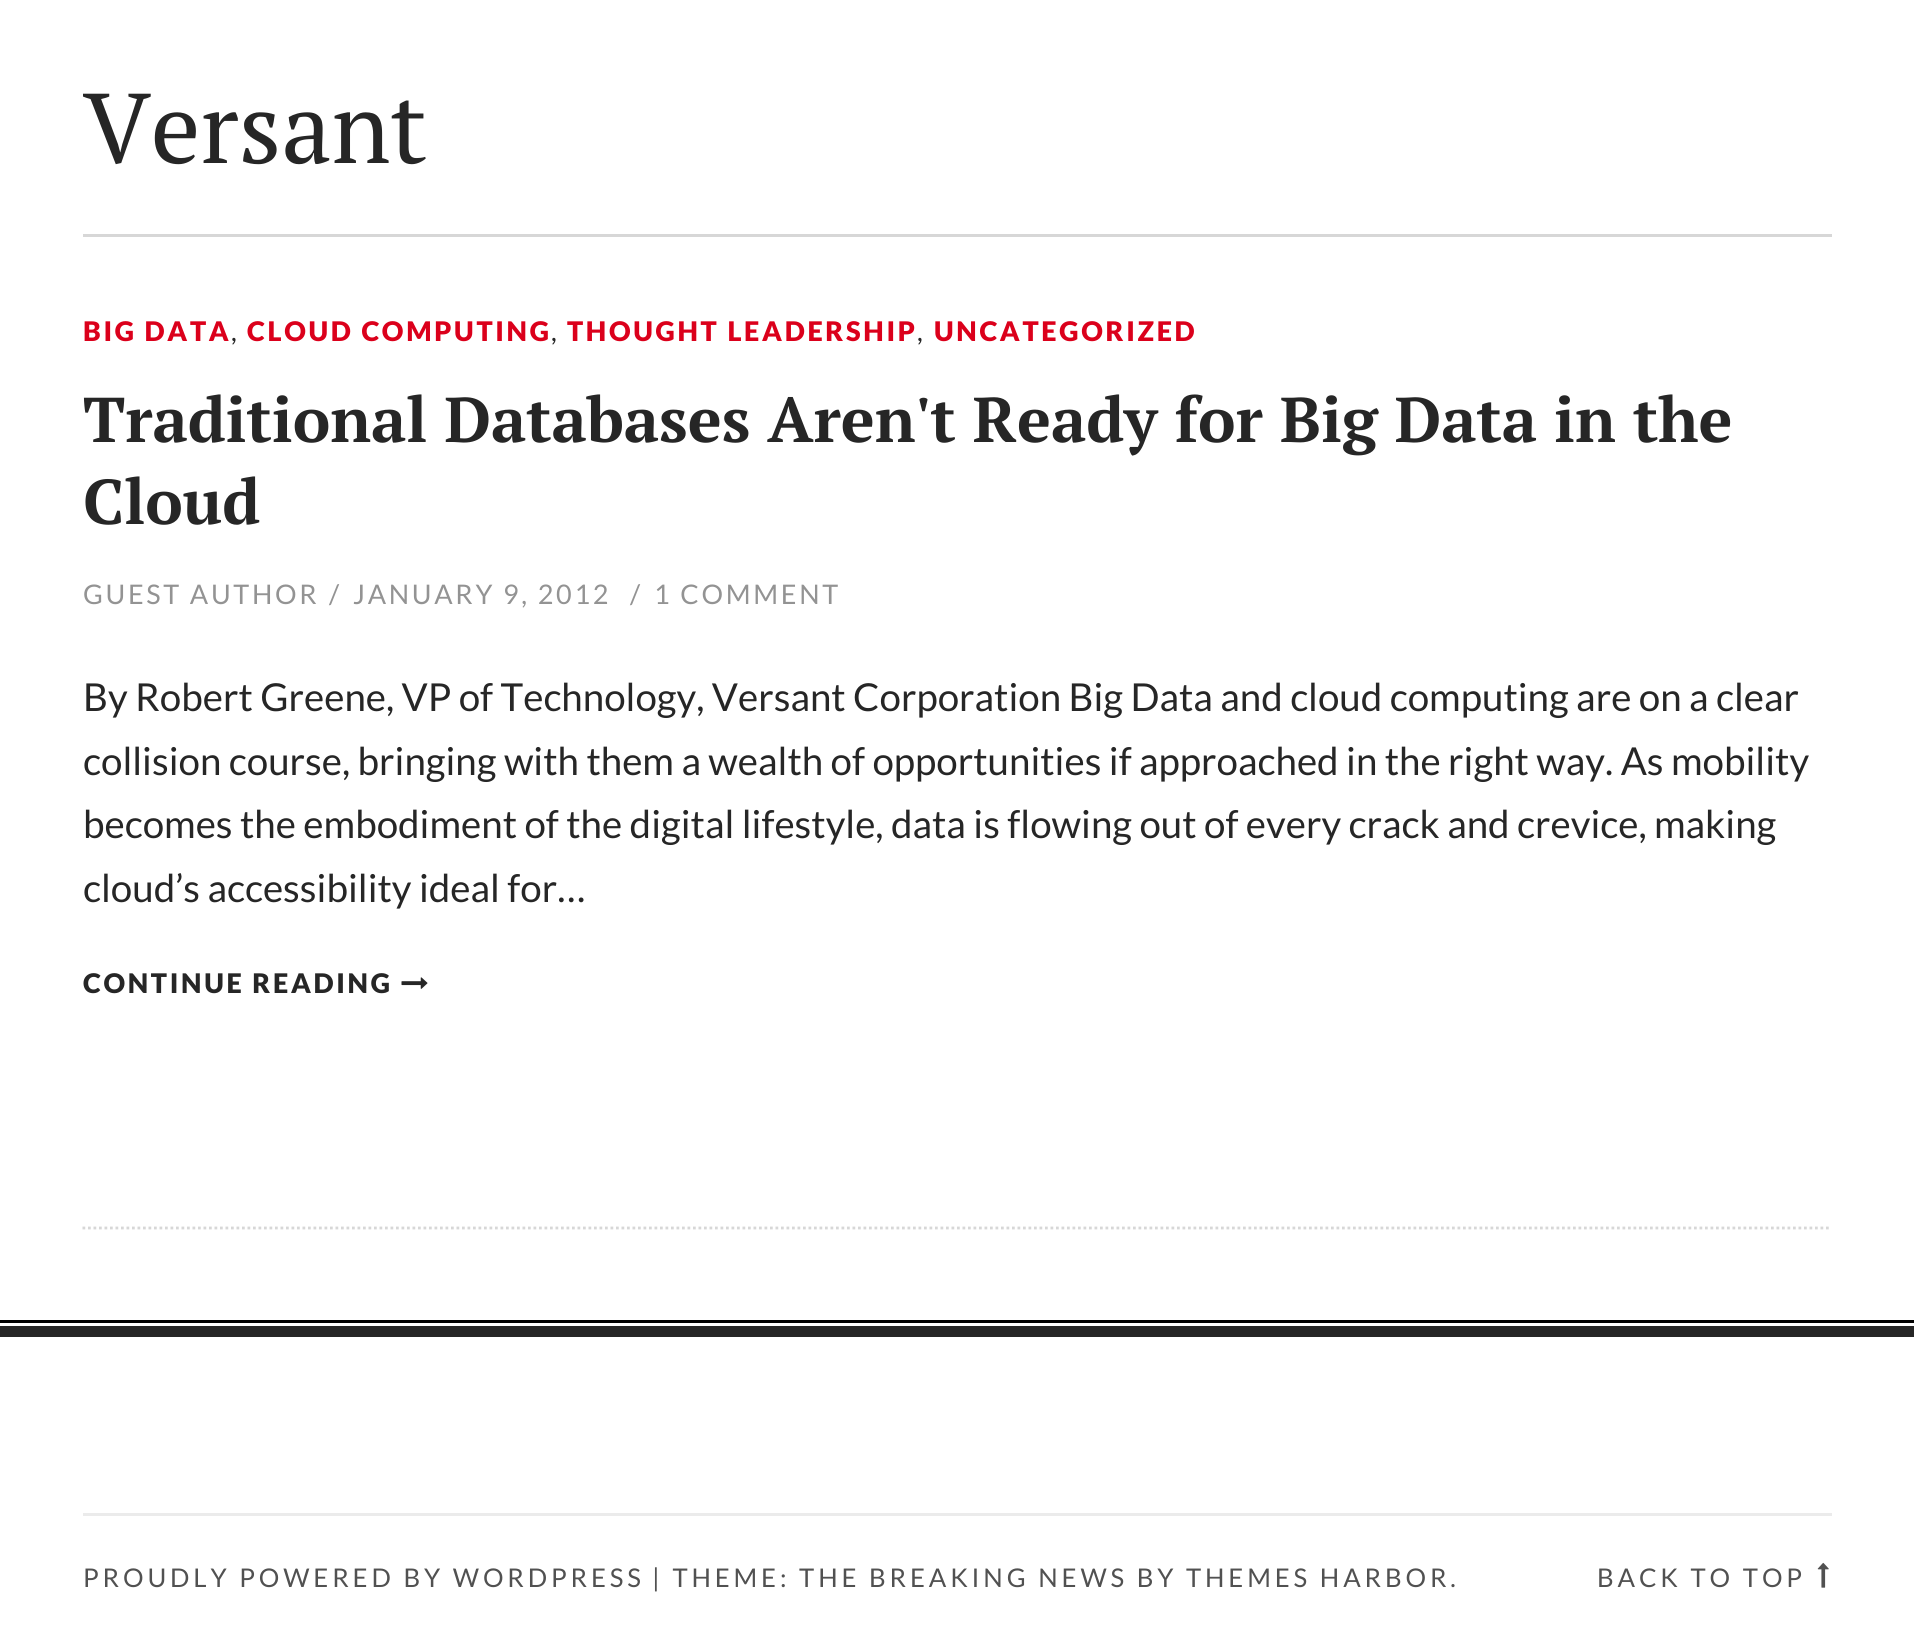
import math
import cairo



def draw_spaced(context, x, y, s, letter, word):
    context.move_to(x, y)
    for ch in s:
        context.show_text(ch)
        context.rel_move_to(letter + word * (ch == ' '), 0)


def draw_image(context, path, x, y, w, h):
    context.save()
    context.set_source_surface(cairo.ImageSurface.create_from_png(path), x, y)
    context.rectangle(x, y, w, h)
    context.fill()
    context.restore()


def draw(context):
    context.set_source_rgb(1, 1, 1)
    context.paint()
    context.set_source_rgb(215 / 255, 215 / 255, 215 / 255)
    context.rectangle(83, 234, 1749, 3)
    context.fill()
    context.new_path()
    context.move_to(82.5, 1228)
    context.line_to(1831.5, 1228)
    context.set_line_width(2.8)
    context.set_dash([2.75, 2.75])
    context.stroke()
    draw_image(context, "images/1.png", 401, 977, 27, 12)
    context.set_source_rgb(38 / 255, 38 / 255, 38 / 255)
    context.rectangle(0, 1326, 1914, 11)
    context.fill()
    context.set_source_rgb(0, 0, 0)
    context.rectangle(0, 1320, 1914, 3)
    context.fill()
    context.set_source_rgb(235 / 255, 235 / 255, 235 / 255)
    context.rectangle(83, 1513, 1749, 3)
    context.fill()
    draw_image(context, "images/2.png", 1817, 1562, 12, 26)
    context.select_font_face("PT Serif")
    context.set_font_size(99)
    context.set_source_rgb(38 / 255, 38 / 255, 38 / 255)
    context.move_to(83, 163)
    context.show_text("Versant")
    context.select_font_face("Lato Black")
    context.set_font_size(27)
    context.set_source_rgb(219 / 255, 0, 27 / 255)
    draw_spaced(context, 83, 341, "BIG DATA", 2.7, 0)
    context.select_font_face("Lato")
    context.set_source_rgb(38 / 255, 38 / 255, 38 / 255)
    draw_spaced(context, 231, 341, ",", 2.7, 0)
    context.select_font_face("Lato Black")
    context.set_source_rgb(219 / 255, 0, 27 / 255)
    draw_spaced(context, 247, 341, "CLOUD COMPUTING", 2.7, 0)
    context.select_font_face("Lato")
    context.set_source_rgb(38 / 255, 38 / 255, 38 / 255)
    draw_spaced(context, 551, 341, ",", 2.7, 0)
    context.select_font_face("Lato Black")
    context.set_source_rgb(219 / 255, 0, 27 / 255)
    draw_spaced(context, 567, 341, "THOUGHT LEADERSHIP", 2.7, 0)
    context.select_font_face("Lato")
    context.set_source_rgb(38 / 255, 38 / 255, 38 / 255)
    draw_spaced(context, 917, 341, ",", 2.7, 0)
    context.select_font_face("Lato Black")
    context.set_source_rgb(219 / 255, 0, 27 / 255)
    draw_spaced(context, 934, 341, "UNCATEGORIZED", 2.7, 0)
    context.select_font_face("PT Serif", cairo.FontSlant.NORMAL, cairo.FontWeight.BOLD)
    context.set_font_size(63.25)
    context.set_source_rgb(38 / 255, 38 / 255, 38 / 255)
    context.move_to(83, 442)
    context.show_text("Traditional Databases Aren't Ready for Big Data in the")
    context.move_to(83, 524)
    context.show_text("Cloud")
    context.select_font_face("Lato")
    context.set_font_size(27)
    context.set_source_rgb(147 / 255, 147 / 255, 147 / 255)
    draw_spaced(context, 83, 604, "GUEST AUTHOR", 2.7, 0)
    draw_spaced(context, 329, 604, "/", 2.7, 0)
    draw_spaced(context, 353, 604, "JANUARY 9, 2012", 2.7, 0)
    draw_spaced(context, 630, 604, "/", 2.7, 0)
    draw_spaced(context, 654, 604, "1 COMMENT", 2.7, 0)
    context.set_font_size(38.5)
    context.set_source_rgb(38 / 255, 38 / 255, 38 / 255)
    context.move_to(83, 711)
    context.show_text("By Robert Greene, VP of Technology, Versant Corporation Big Data and cloud computing are on a clear")
    context.move_to(83, 775)
    context.show_text("collision course, bringing with them a wealth of opportunities if approached in the right way. As mobility")
    context.move_to(83, 838)
    context.show_text("becomes the embodiment of the digital lifestyle, data is flowing out of every crack and crevice, making")
    context.move_to(83, 902)
    context.show_text("cloud’s accessibility ideal for…")
    context.select_font_face("Lato Black")
    context.set_font_size(27)
    draw_spaced(context, 83, 993, "CONTINUE READING", 2.7, 0)
    context.select_font_face("Lato")
    context.set_font_size(25.75)
    context.set_source_rgb(81 / 255, 81 / 255, 81 / 255)
    draw_spaced(context, 83, 1587, "PROUDLY POWERED BY WORDPRESS", 3.85, 0)
    draw_spaced(context, 652, 1587, "| THEME: THE BREAKING NEWS BY", 3.85, 0)
    draw_spaced(context, 1186, 1587, "THEMES HARBOR.", 3.85, 0)
    draw_spaced(context, 1597, 1587, "BACK TO TOP", 3.85, 0)


surface = cairo.ImageSurface(cairo.Format.RGB24, 1914, 1651)
context = cairo.Context(surface)
options = cairo.FontOptions()
options.set_hint_metrics(cairo.HintMetrics.OFF)
options.set_hint_style(cairo.HintStyle.NONE)
context.set_font_options(options)
context.set_miter_limit(4)
draw(context)
surface.write_to_png("out.png")
